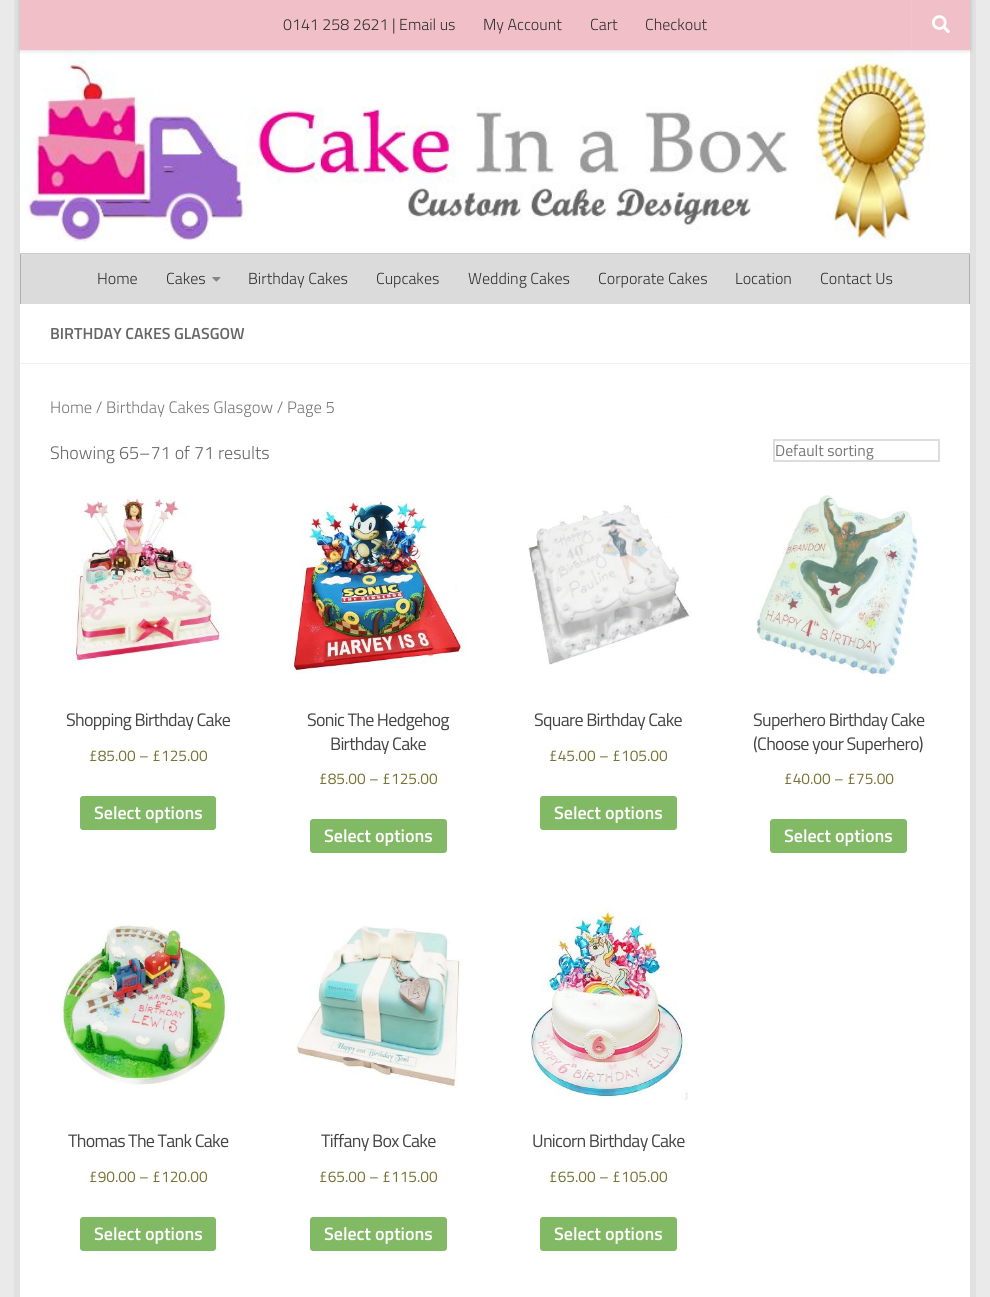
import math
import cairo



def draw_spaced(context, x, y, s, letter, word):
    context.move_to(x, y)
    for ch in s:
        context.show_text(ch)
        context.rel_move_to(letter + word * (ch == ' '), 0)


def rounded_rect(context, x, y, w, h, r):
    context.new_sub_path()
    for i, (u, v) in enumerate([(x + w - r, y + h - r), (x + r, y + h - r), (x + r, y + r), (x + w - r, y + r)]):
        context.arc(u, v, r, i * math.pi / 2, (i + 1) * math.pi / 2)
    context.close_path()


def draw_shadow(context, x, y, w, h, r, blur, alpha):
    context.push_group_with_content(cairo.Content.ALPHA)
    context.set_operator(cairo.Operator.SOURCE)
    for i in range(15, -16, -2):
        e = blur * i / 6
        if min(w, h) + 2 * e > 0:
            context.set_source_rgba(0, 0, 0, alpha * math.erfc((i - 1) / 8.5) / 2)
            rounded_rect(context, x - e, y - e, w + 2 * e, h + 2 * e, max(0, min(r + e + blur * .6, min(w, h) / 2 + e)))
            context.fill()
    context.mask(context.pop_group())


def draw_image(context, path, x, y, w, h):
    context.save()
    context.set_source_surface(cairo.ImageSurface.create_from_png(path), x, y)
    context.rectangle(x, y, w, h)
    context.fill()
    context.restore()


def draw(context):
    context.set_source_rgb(234 / 255, 234 / 255, 234 / 255)
    context.paint()
    context.set_source_rgb(225 / 255, 225 / 255, 225 / 255)
    context.rectangle(14, 0, 6, 1297)
    context.fill()
    context.rectangle(970, 0, 6, 1297)
    context.fill()
    context.set_source_rgb(1, 1, 1)
    context.rectangle(20, 50, 950, 313)
    context.fill()
    draw_image(context, "images/2.png", 20, 50, 910, 192)
    context.set_source_rgb(0, 0, 0)
    draw_shadow(context, 20, 0, 950, 50, 0, 2.5, 0.2)
    context.set_source_rgb(241 / 255, 191 / 255, 200 / 255)
    context.rectangle(20, 0, 950, 50)
    context.fill()
    context.set_source_rgb(242 / 255, 197 / 255, 206 / 255)
    context.rectangle(911, 0, 1, 50)
    context.fill()
    draw_image(context, "images/1.png", 932, 15, 18, 19)
    context.set_source_rgb(204 / 255, 204 / 255, 204 / 255)
    context.rectangle(20, 253, 950, 1)
    context.fill()
    context.set_source_rgb(219 / 255, 219 / 255, 219 / 255)
    context.rectangle(21, 255, 948, 49)
    context.fill()
    context.set_source_rgb(221 / 255, 221 / 255, 221 / 255)
    context.rectangle(20, 254, 950, 1)
    context.fill()
    context.set_source_rgb(175 / 255, 175 / 255, 175 / 255)
    context.rectangle(969, 254, 1, 50)
    context.fill()
    context.set_source_rgb(179 / 255, 179 / 255, 179 / 255)
    context.rectangle(969, 254, 1, 1)
    context.fill()
    context.set_source_rgb(175 / 255, 175 / 255, 175 / 255)
    context.rectangle(20, 254, 1, 50)
    context.fill()
    context.set_source_rgb(179 / 255, 179 / 255, 179 / 255)
    context.rectangle(20, 254, 1, 1)
    context.fill()
    draw_image(context, "images/3.png", 212, 277, 9, 5)
    context.set_source_rgb(1, 1, 1)
    context.rectangle(20, 364, 950, 933)
    context.fill()
    context.set_source_rgb(238 / 255, 238 / 255, 238 / 255)
    context.rectangle(20, 363, 950, 1)
    context.fill()
    context.rectangle(774, 440, 165, 21)
    context.set_source_rgb(221 / 255, 221 / 255, 221 / 255)
    context.stroke()
    draw_image(context, "images/4.png", 71, 496, 157, 168)
    context.set_source_rgb(130 / 255, 185 / 255, 101 / 255)
    rounded_rect(context, 80, 796, 136, 34, 3)
    context.fill()
    draw_image(context, "images/5.png", 290, 496, 178, 178)
    rounded_rect(context, 310, 819, 137, 34, 3)
    context.fill()
    draw_image(context, "images/6.png", 528, 502, 164, 163)
    rounded_rect(context, 540, 796, 137, 34, 3)
    context.fill()
    draw_image(context, "images/7.png", 755, 495, 163, 180)
    rounded_rect(context, 770, 819, 137, 34, 3)
    context.fill()
    draw_image(context, "images/8.png", 60, 920, 168, 165)
    rounded_rect(context, 80, 1217, 136, 34, 3)
    context.fill()
    draw_image(context, "images/9.png", 295, 925, 167, 163)
    rounded_rect(context, 310, 1217, 137, 34, 3)
    context.fill()
    draw_image(context, "images/10.png", 531, 907, 157, 196)
    rounded_rect(context, 540, 1217, 137, 34, 3)
    context.fill()
    context.select_font_face("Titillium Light")
    context.set_font_size(16)
    context.set_source_rgb(48 / 255, 48 / 255, 48 / 255)
    context.move_to(283, 30)
    context.show_text("0141 258 2621 | Email us")
    context.move_to(483, 30)
    context.show_text("My Account")
    context.move_to(590, 30)
    context.show_text("Cart")
    context.move_to(645, 30)
    context.show_text("Checkout")
    context.move_to(97, 284)
    context.show_text("Home")
    context.move_to(166, 284)
    context.show_text("Cakes")
    context.move_to(248, 284)
    context.show_text("Birthday Cakes")
    context.move_to(376, 284)
    context.show_text("Cupcakes")
    context.move_to(468, 284)
    context.show_text("Wedding Cakes")
    context.move_to(598, 284)
    context.show_text("Corporate Cakes")
    context.move_to(735, 284)
    context.show_text("Location")
    context.move_to(820, 284)
    context.show_text("Contact Us")
    context.select_font_face("Titillium SemiBold")
    context.set_source_rgb(102 / 255, 102 / 255, 102 / 255)
    context.move_to(50, 339)
    context.show_text("BIRTHDAY CAKES GLASGOW")
    context.select_font_face("Titillium Light")
    context.set_font_size(16.6)
    context.set_source_rgb(119 / 255, 119 / 255, 119 / 255)
    context.move_to(50, 413)
    context.show_text("Home / Birthday Cakes Glasgow / Page 5")
    context.set_font_size(18)
    context.set_source_rgb(102 / 255, 102 / 255, 102 / 255)
    context.move_to(50, 459)
    context.show_text("Showing 65–71 of 71 results")
    context.select_font_face("Titillium")
    context.set_font_size(15.75)
    context.set_source_rgb(119 / 255, 119 / 255, 119 / 255)
    context.move_to(775, 456)
    context.show_text("Default sorting")
    context.set_font_size(18)
    context.set_source_rgb(68 / 255, 68 / 255, 68 / 255)
    draw_spaced(context, 66, 726, "Shopping Birthday Cake", -0.7, 0)
    context.set_font_size(15.5)
    context.set_source_rgb(119 / 255, 115 / 255, 53 / 255)
    context.move_to(89, 761)
    context.show_text("£85.00 – £125.00")
    context.select_font_face("Titillium SemiBold")
    context.set_font_size(18)
    context.set_source_rgb(1, 1, 1)
    context.move_to(94, 819)
    context.show_text("Select options")
    context.select_font_face("Titillium")
    context.set_source_rgb(68 / 255, 68 / 255, 68 / 255)
    draw_spaced(context, 307, 726, "Sonic The Hedgehog", -0.7, 0)
    draw_spaced(context, 330, 750, "Birthday Cake", -0.7, 0)
    context.set_font_size(15.5)
    context.set_source_rgb(119 / 255, 115 / 255, 53 / 255)
    context.move_to(319, 784)
    context.show_text("£85.00 – £125.00")
    context.select_font_face("Titillium SemiBold")
    context.set_font_size(18)
    context.set_source_rgb(1, 1, 1)
    context.move_to(324, 842)
    context.show_text("Select options")
    context.select_font_face("Titillium")
    context.set_source_rgb(68 / 255, 68 / 255, 68 / 255)
    draw_spaced(context, 534, 726, "Square Birthday Cake", -0.7, 0)
    context.set_font_size(15.5)
    context.set_source_rgb(119 / 255, 115 / 255, 53 / 255)
    context.move_to(549, 761)
    context.show_text("£45.00 – £105.00")
    context.select_font_face("Titillium SemiBold")
    context.set_font_size(18)
    context.set_source_rgb(1, 1, 1)
    context.move_to(554, 819)
    context.show_text("Select options")
    context.select_font_face("Titillium")
    context.set_source_rgb(68 / 255, 68 / 255, 68 / 255)
    draw_spaced(context, 753, 726, "Superhero Birthday Cake", -0.7, 0)
    draw_spaced(context, 753, 750, "(Choose your Superhero)", -0.7, 0)
    context.set_font_size(15.5)
    context.set_source_rgb(119 / 255, 115 / 255, 53 / 255)
    context.move_to(784, 784)
    context.show_text("£40.00 – £75.00")
    context.select_font_face("Titillium SemiBold")
    context.set_font_size(18)
    context.set_source_rgb(1, 1, 1)
    context.move_to(784, 842)
    context.show_text("Select options")
    context.select_font_face("Titillium")
    context.set_source_rgb(68 / 255, 68 / 255, 68 / 255)
    draw_spaced(context, 68, 1147, "Thomas The Tank Cake", -0.7, 0)
    context.set_font_size(15.5)
    context.set_source_rgb(119 / 255, 115 / 255, 53 / 255)
    context.move_to(89, 1182)
    context.show_text("£90.00 – £120.00")
    context.select_font_face("Titillium SemiBold")
    context.set_font_size(18)
    context.set_source_rgb(1, 1, 1)
    context.move_to(94, 1240)
    context.show_text("Select options")
    context.select_font_face("Titillium")
    context.set_source_rgb(68 / 255, 68 / 255, 68 / 255)
    draw_spaced(context, 321, 1147, "Tiffany Box Cake", -0.7, 0)
    context.set_font_size(15.5)
    context.set_source_rgb(119 / 255, 115 / 255, 53 / 255)
    context.move_to(319, 1182)
    context.show_text("£65.00 – £115.00")
    context.select_font_face("Titillium SemiBold")
    context.set_font_size(18)
    context.set_source_rgb(1, 1, 1)
    context.move_to(324, 1240)
    context.show_text("Select options")
    context.select_font_face("Titillium")
    context.set_source_rgb(68 / 255, 68 / 255, 68 / 255)
    draw_spaced(context, 532, 1147, "Unicorn Birthday Cake", -0.7, 0)
    context.set_font_size(15.5)
    context.set_source_rgb(119 / 255, 115 / 255, 53 / 255)
    context.move_to(549, 1182)
    context.show_text("£65.00 – £105.00")
    context.select_font_face("Titillium SemiBold")
    context.set_font_size(18)
    context.set_source_rgb(1, 1, 1)
    context.move_to(554, 1240)
    context.show_text("Select options")


surface = cairo.ImageSurface(cairo.Format.RGB24, 990, 1297)
context = cairo.Context(surface)
options = cairo.FontOptions()
options.set_hint_metrics(cairo.HintMetrics.OFF)
options.set_hint_style(cairo.HintStyle.NONE)
context.set_font_options(options)
context.set_miter_limit(4)
draw(context)
surface.write_to_png("out.png")
